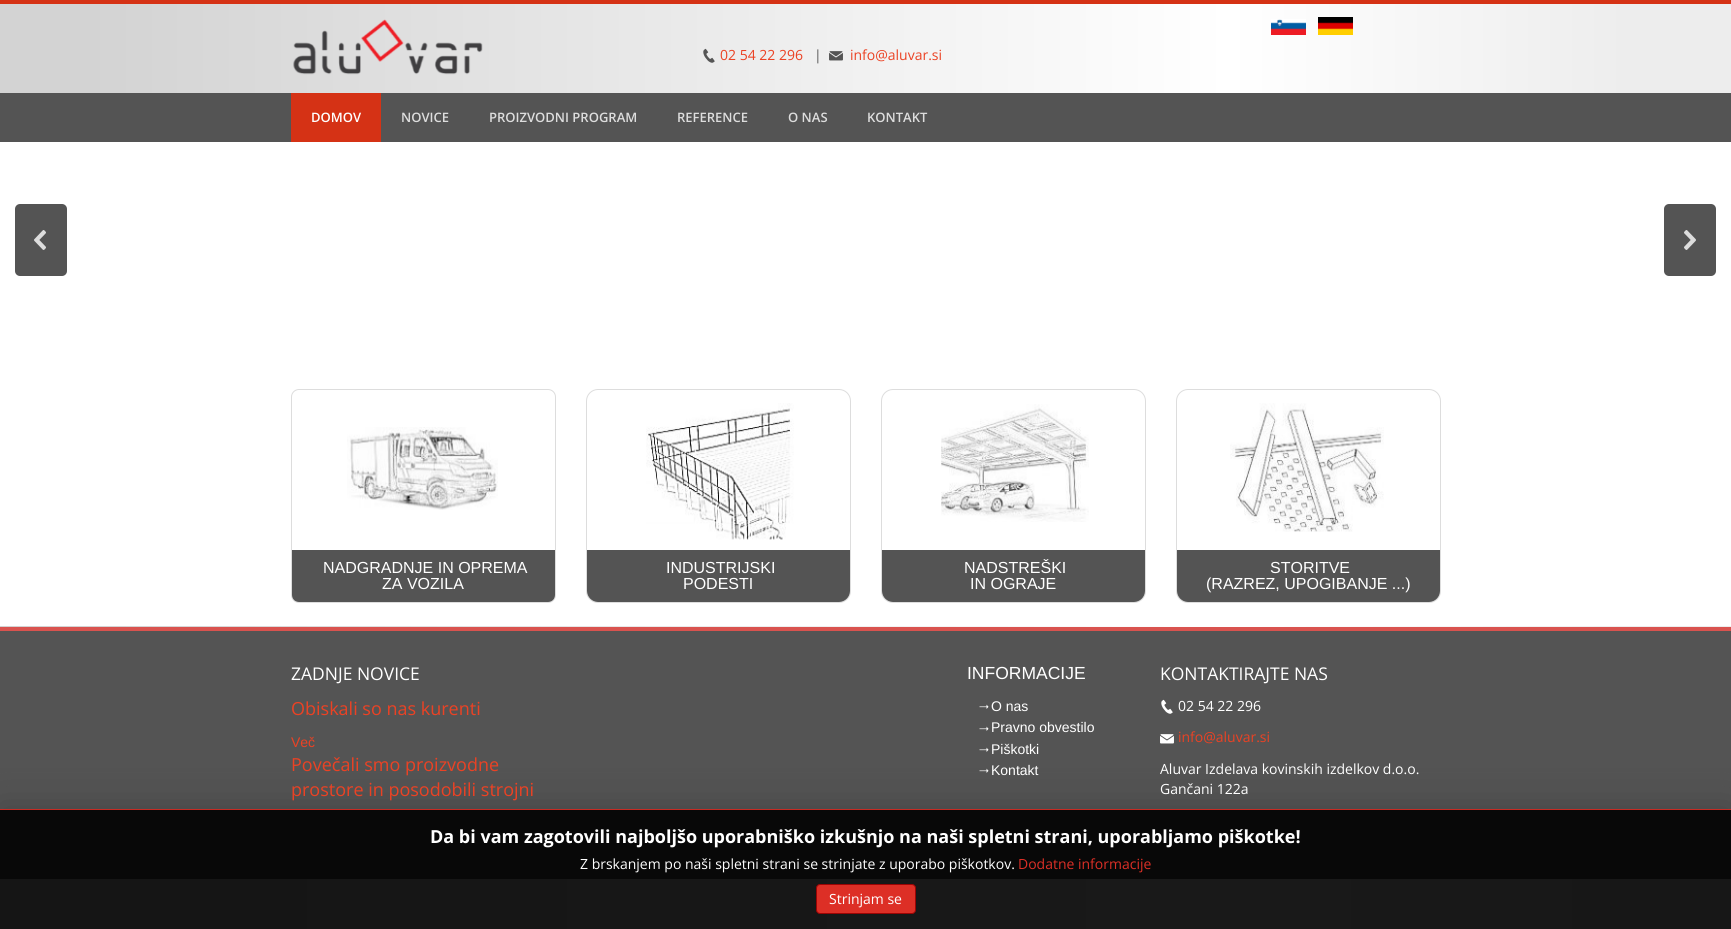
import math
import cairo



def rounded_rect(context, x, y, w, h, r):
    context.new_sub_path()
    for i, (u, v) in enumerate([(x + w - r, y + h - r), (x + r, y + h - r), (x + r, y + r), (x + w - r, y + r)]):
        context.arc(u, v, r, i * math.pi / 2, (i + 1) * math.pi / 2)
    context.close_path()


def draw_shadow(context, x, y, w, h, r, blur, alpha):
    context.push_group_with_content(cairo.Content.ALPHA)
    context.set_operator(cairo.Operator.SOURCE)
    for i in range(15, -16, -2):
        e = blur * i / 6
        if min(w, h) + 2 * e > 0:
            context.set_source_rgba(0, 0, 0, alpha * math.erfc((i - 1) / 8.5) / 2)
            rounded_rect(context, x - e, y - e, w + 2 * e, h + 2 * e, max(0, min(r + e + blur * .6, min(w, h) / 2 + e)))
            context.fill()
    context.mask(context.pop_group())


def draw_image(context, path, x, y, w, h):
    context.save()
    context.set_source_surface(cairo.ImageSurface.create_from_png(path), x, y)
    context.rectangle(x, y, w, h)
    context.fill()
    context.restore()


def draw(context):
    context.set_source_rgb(1, 1, 1)
    context.paint()
    gradient = cairo.LinearGradient(0, 73, 1731, 73)
    gradient.add_color_stop_rgba(0.05, 211 / 255, 211 / 255, 211 / 255, 1)
    gradient.add_color_stop_rgba(0.71, 1, 1, 1, 1)
    gradient.add_color_stop_rgba(0.94, 237 / 255, 237 / 255, 237 / 255, 1)
    context.set_source(gradient)
    context.rectangle(0, 4, 1731, 89)
    context.fill()
    context.set_source_rgb(213 / 255, 50 / 255, 21 / 255)
    context.rectangle(0, 0, 1731, 4)
    context.fill()
    draw_image(context, "images/1.png", 293, 19, 190, 56)
    draw_image(context, "images/2.png", 703, 48, 12, 15)
    draw_image(context, "images/3.png", 829, 51, 14, 10)
    draw_image(context, "images/4.png", 1271, 19, 35, 16)
    draw_image(context, "images/5.png", 1318, 17, 35, 18)
    context.set_source_rgb(84 / 255, 84 / 255, 84 / 255)
    context.rectangle(0, 93, 1731, 49)
    context.fill()
    context.set_source_rgb(213 / 255, 50 / 255, 21 / 255)
    context.rectangle(291, 93, 90, 49)
    context.fill()
    context.set_source_rgb(84 / 255, 84 / 255, 84 / 255)
    rounded_rect(context, 15, 204, 52, 72, 5)
    context.fill()
    draw_image(context, "images/6.png", 34, 230, 12, 20)
    rounded_rect(context, 1664, 204, 52, 72, 5)
    context.fill()
    draw_image(context, "images/7.png", 1684, 230, 12, 20)
    rounded_rect(context, 291.5, 389.5, 264, 213, 7.5)
    context.set_source_rgb(221 / 255, 221 / 255, 221 / 255)
    context.set_line_width(1)
    context.stroke()
    draw_image(context, "images/8.png", 347, 427, 151, 83)
    context.set_source_rgb(84 / 255, 84 / 255, 84 / 255)
    context.new_path()
    context.move_to(292, 550)
    context.line_to(555, 550)
    context.line_to(555, 595)
    context.curve_to(555, 599, 552, 602, 548, 602)
    context.line_to(299, 602)
    context.curve_to(295, 602, 292, 599, 292, 595)
    context.close_path()
    context.fill()
    rounded_rect(context, 586.5, 389.5, 264, 213, 11.5)
    context.set_source_rgb(221 / 255, 221 / 255, 221 / 255)
    context.stroke()
    draw_image(context, "images/9.png", 646, 403, 148, 137)
    context.set_source_rgb(84 / 255, 84 / 255, 84 / 255)
    context.new_path()
    context.move_to(587, 550)
    context.line_to(850, 550)
    context.line_to(850, 591)
    context.curve_to(850, 597, 845, 602, 839, 602)
    context.line_to(598, 602)
    context.curve_to(592, 602, 587, 597, 587, 591)
    context.close_path()
    context.fill()
    rounded_rect(context, 881.5, 389.5, 264, 213, 11.5)
    context.set_source_rgb(221 / 255, 221 / 255, 221 / 255)
    context.stroke()
    draw_image(context, "images/10.png", 941, 404, 148, 118)
    context.set_source_rgb(84 / 255, 84 / 255, 84 / 255)
    context.new_path()
    context.move_to(882, 550)
    context.line_to(1145, 550)
    context.line_to(1145, 591)
    context.curve_to(1145, 597, 1140, 602, 1134, 602)
    context.line_to(893, 602)
    context.curve_to(887, 602, 882, 597, 882, 591)
    context.close_path()
    context.fill()
    rounded_rect(context, 1176.5, 389.5, 264, 213, 11.5)
    context.set_source_rgb(221 / 255, 221 / 255, 221 / 255)
    context.stroke()
    draw_image(context, "images/11.png", 1230, 403, 154, 129)
    context.set_source_rgb(84 / 255, 84 / 255, 84 / 255)
    context.new_path()
    context.move_to(1177, 550)
    context.line_to(1440, 550)
    context.line_to(1440, 591)
    context.curve_to(1440, 597, 1435, 602, 1429, 602)
    context.line_to(1188, 602)
    context.curve_to(1182, 602, 1177, 597, 1177, 591)
    context.close_path()
    context.fill()
    gradient = cairo.LinearGradient(0, 785, 1731, 785)
    gradient.add_color_stop_rgba(0.05, 211 / 255, 211 / 255, 211 / 255, 1)
    gradient.add_color_stop_rgba(0.71, 1, 1, 1, 1)
    gradient.add_color_stop_rgba(0.94, 237 / 255, 237 / 255, 237 / 255, 1)
    context.set_source(gradient)
    context.rectangle(0, 626, 1731, 303)
    context.fill()
    context.set_source_rgb(84 / 255, 84 / 255, 84 / 255)
    context.rectangle(0, 631, 1731, 248)
    context.fill()
    context.set_source_rgb(217 / 255, 83 / 255, 79 / 255)
    context.rectangle(0, 627, 1731, 4)
    context.fill()
    draw_image(context, "images/12.png", 979, 704, 10, 5)
    draw_image(context, "images/12.png", 979, 726, 10, 5)
    draw_image(context, "images/12.png", 979, 747, 10, 5)
    draw_image(context, "images/12.png", 979, 768, 10, 5)
    draw_image(context, "images/13.png", 1161, 699, 12, 15)
    draw_image(context, "images/14.png", 1160, 734, 14, 10)
    context.save()
    context.rectangle(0, 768, 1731, 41)
    context.clip()
    context.set_source_rgb(68 / 255, 68 / 255, 68 / 255)
    draw_shadow(context, 0, 809, 1731, 120, 0, 20, 1)
    context.restore()
    context.set_source_rgba(0, 0, 0, 0.9)
    context.rectangle(0, 809, 1731, 120)
    context.fill()
    context.set_source_rgba(221 / 255, 47 / 255, 38 / 255, 0.9)
    context.rectangle(0, 809, 1731, 1)
    context.fill()
    context.set_source_rgb(221 / 255, 47 / 255, 38 / 255)
    rounded_rect(context, 816.5, 884.5, 99, 29, 3.5)
    context.fill_preserve()
    context.set_source_rgb(156 / 255, 4 / 255, 4 / 255)
    context.stroke()
    context.select_font_face("Open Sans")
    context.set_font_size(14)
    context.set_source_rgb(235 / 255, 66 / 255, 36 / 255)
    context.move_to(720, 60)
    context.show_text("02 54 22 296")
    context.set_source_rgb(85 / 255, 85 / 255, 85 / 255)
    context.move_to(814, 60)
    context.show_text("|")
    context.set_source_rgb(235 / 255, 66 / 255, 36 / 255)
    context.move_to(850, 60)
    context.show_text("info@aluvar.si")
    context.select_font_face("Open Sans SemiBold")
    context.set_font_size(13)
    context.set_source_rgb(1, 1, 1)
    context.move_to(311, 122)
    context.show_text("DOMOV")
    context.set_source_rgb(221 / 255, 221 / 255, 221 / 255)
    context.move_to(401, 122)
    context.show_text("NOVICE")
    context.move_to(489, 122)
    context.show_text("PROIZVODNI PROGRAM")
    context.move_to(677, 122)
    context.show_text("REFERENCE")
    context.move_to(788, 122)
    context.show_text("O NAS")
    context.move_to(867, 122)
    context.show_text("KONTAKT")
    context.select_font_face("Liberation Sans")
    context.set_font_size(16)
    context.set_source_rgb(1, 1, 1)
    context.move_to(323, 573)
    context.show_text("NADGRADNJE IN OPREMA")
    context.move_to(382, 589)
    context.show_text("ZA VOZILA")
    context.move_to(666, 573)
    context.show_text("INDUSTRIJSKI")
    context.move_to(683, 589)
    context.show_text("PODESTI")
    context.move_to(964, 573)
    context.show_text("NADSTREŠKI")
    context.move_to(970, 589)
    context.show_text("IN OGRAJE")
    context.move_to(1270, 573)
    context.show_text("STORITVE")
    context.move_to(1206, 589)
    context.show_text("(RAZREZ, UPOGIBANJE ...)")
    context.select_font_face("Open Sans")
    context.set_font_size(17.5)
    context.move_to(291, 680)
    context.show_text("ZADNJE NOVICE")
    context.set_font_size(18)
    context.set_source_rgb(235 / 255, 66 / 255, 36 / 255)
    context.move_to(291, 715)
    context.show_text("Obiskali so nas kurenti")
    context.select_font_face("Liberation Sans")
    context.set_font_size(14)
    context.move_to(291, 747)
    context.show_text("Več")
    context.select_font_face("Open Sans")
    context.set_font_size(18)
    context.move_to(291, 771)
    context.show_text("Povečali smo proizvodne")
    context.move_to(291, 796)
    context.show_text("prostore in posodobili strojni")
    context.select_font_face("Liberation Sans")
    context.set_font_size(17.5)
    context.set_source_rgb(1, 1, 1)
    context.move_to(967, 679)
    context.show_text("INFORMACIJE")
    context.set_font_size(14)
    context.move_to(991, 711)
    context.show_text("O nas")
    context.move_to(991, 732)
    context.show_text("Pravno obvestilo")
    context.move_to(991, 754)
    context.show_text("Piškotki")
    context.move_to(991, 775)
    context.show_text("Kontakt")
    context.select_font_face("Open Sans")
    context.set_font_size(17.5)
    context.move_to(1160, 680)
    context.show_text("KONTAKTIRAJTE NAS")
    context.set_font_size(14)
    context.move_to(1178, 711)
    context.show_text("02 54 22 296")
    context.set_source_rgb(235 / 255, 66 / 255, 36 / 255)
    context.move_to(1178, 742)
    context.show_text("info@aluvar.si")
    context.set_source_rgb(1, 1, 1)
    context.move_to(1160, 774)
    context.show_text("Aluvar Izdelava kovinskih izdelkov d.o.o.")
    context.move_to(1160, 794)
    context.show_text("Gančani 122a")
    context.select_font_face("Open Sans", cairo.FontSlant.NORMAL, cairo.FontWeight.BOLD)
    context.set_font_size(18)
    context.move_to(430, 843)
    context.show_text("Da bi vam zagotovili najboljšo uporabniško izkušnjo na naši spletni strani, uporabljamo piškotke!")
    context.select_font_face("Open Sans")
    context.set_font_size(14)
    context.move_to(580, 869)
    context.show_text("Z brskanjem po naši spletni strani se strinjate z uporabo piškotkov.")
    context.set_source_rgb(221 / 255, 47 / 255, 38 / 255)
    context.move_to(1018, 869)
    context.show_text("Dodatne informacije")
    context.set_source_rgb(1, 1, 1)
    context.move_to(829, 904)
    context.show_text("Strinjam se")


surface = cairo.ImageSurface(cairo.Format.RGB24, 1731, 929)
context = cairo.Context(surface)
options = cairo.FontOptions()
options.set_hint_metrics(cairo.HintMetrics.OFF)
options.set_hint_style(cairo.HintStyle.NONE)
context.set_font_options(options)
context.set_miter_limit(4)
draw(context)
surface.write_to_png("out.png")
